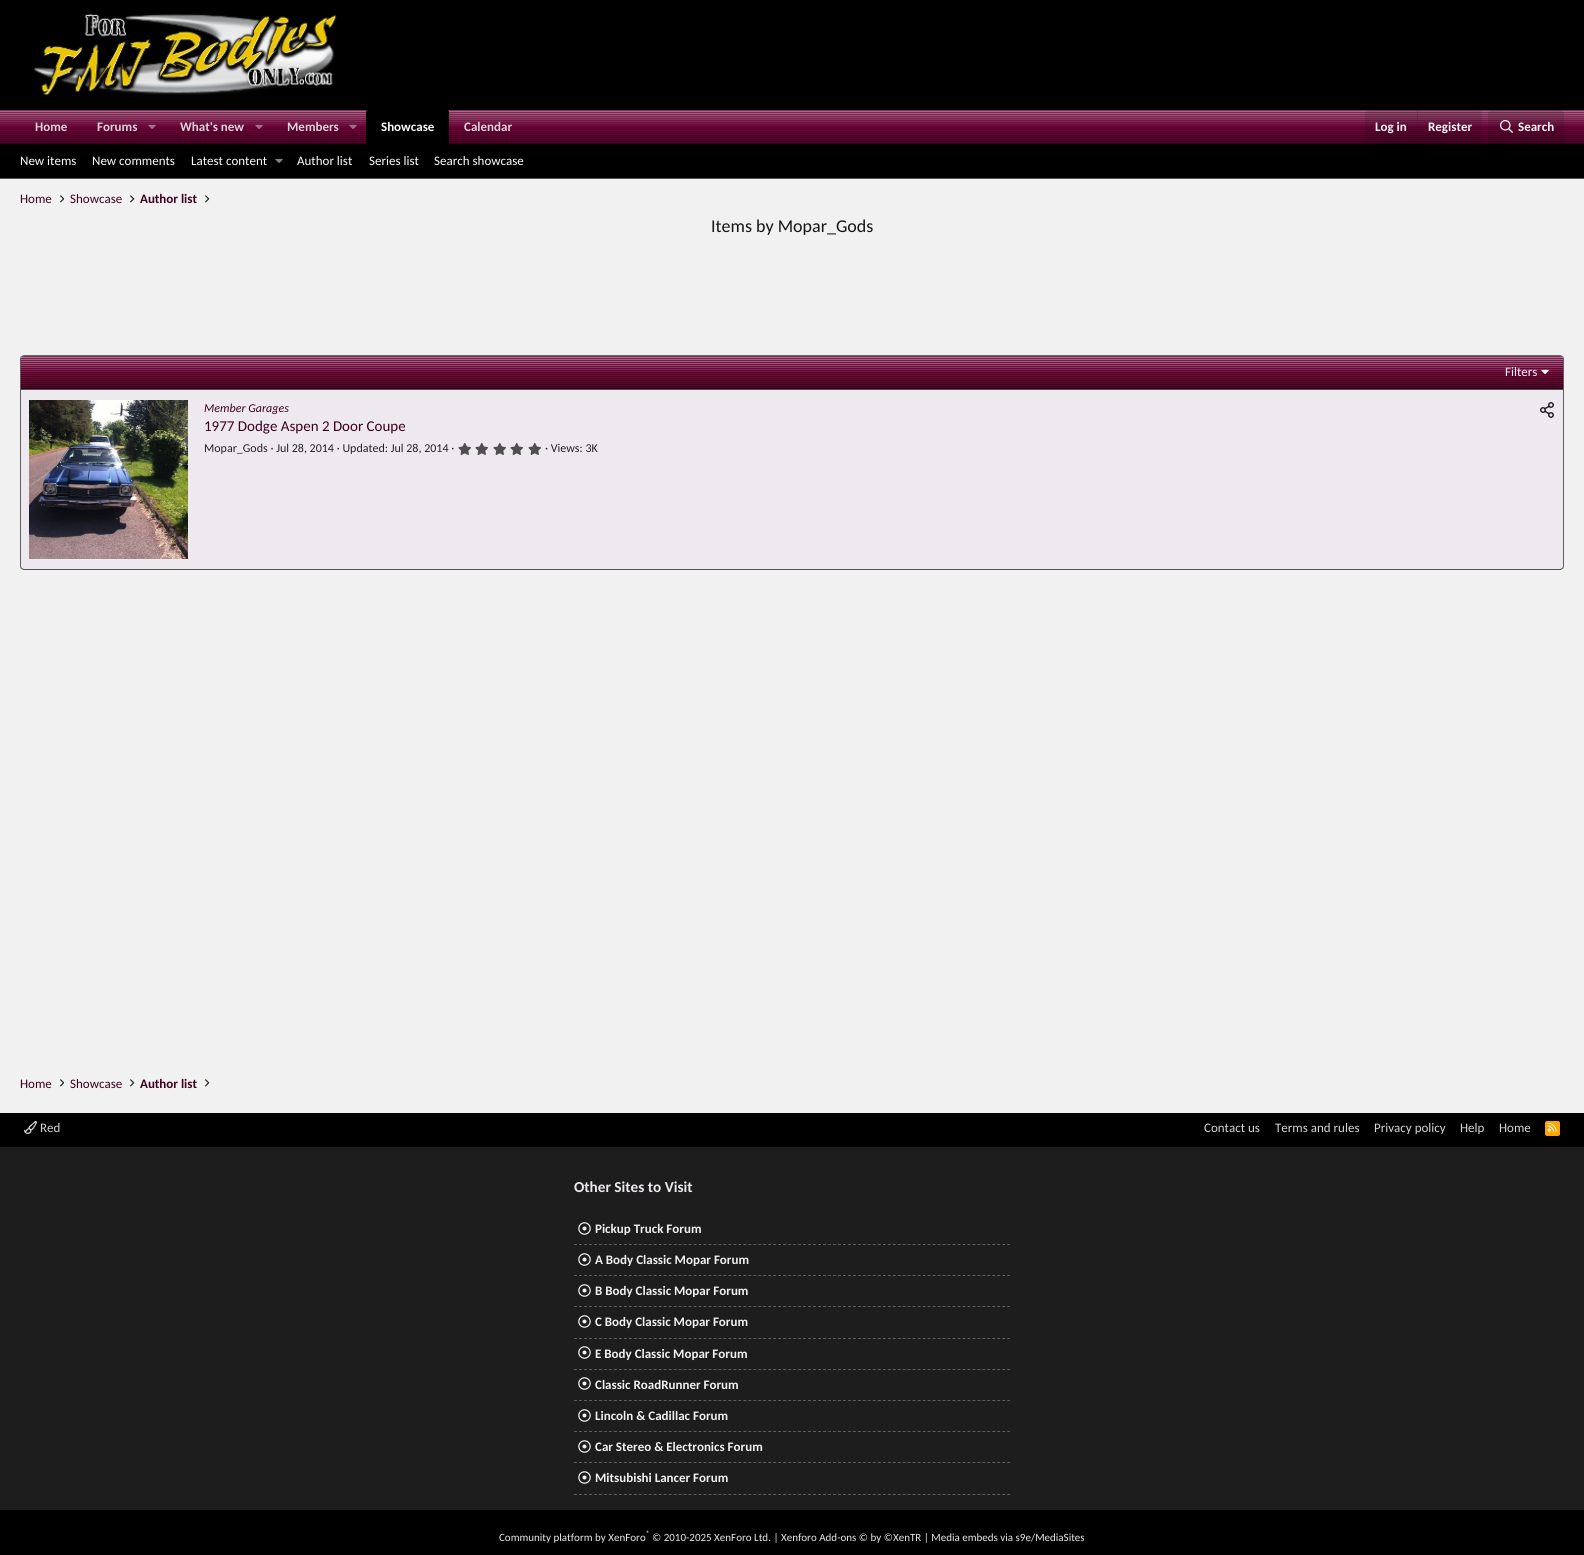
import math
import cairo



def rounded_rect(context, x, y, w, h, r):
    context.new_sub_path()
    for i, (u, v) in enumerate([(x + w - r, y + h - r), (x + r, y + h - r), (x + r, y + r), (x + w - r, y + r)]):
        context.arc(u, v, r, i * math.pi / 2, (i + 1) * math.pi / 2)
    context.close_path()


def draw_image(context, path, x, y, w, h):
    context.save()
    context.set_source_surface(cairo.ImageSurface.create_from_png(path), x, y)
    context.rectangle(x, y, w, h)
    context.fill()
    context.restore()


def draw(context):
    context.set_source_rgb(241 / 255, 241 / 255, 241 / 255)
    context.paint()
    context.set_source_rgb(0, 0, 0)
    context.rectangle(0, 0, 1584, 110)
    context.fill()
    draw_image(context, "images/1.png", 33, 13, 304, 83)
    draw_image(context, "images/2.png", 0, 110, 1584, 34)
    draw_image(context, "images/3.png", 148, 124, 8, 5)
    draw_image(context, "images/3.png", 255, 124, 8, 5)
    draw_image(context, "images/3.png", 349, 124, 8, 5)
    context.new_path()
    context.move_to(368, 110)
    context.line_to(447, 110)
    context.curve_to(448, 110, 449, 111, 449, 112)
    context.line_to(449, 144)
    context.line_to(366, 144)
    context.line_to(366, 112)
    context.curve_to(366, 111, 367, 110, 368, 110)
    context.close_path()
    context.fill()
    context.set_source_rgba(20 / 255, 20 / 255, 20 / 255, 0.15)
    context.new_path()
    context.move_to(1369, 110)
    context.line_to(1478, 110)
    context.curve_to(1480, 110, 1482, 112, 1482, 114)
    context.line_to(1482, 144)
    context.line_to(1365, 144)
    context.line_to(1365, 114)
    context.curve_to(1365, 112, 1367, 110, 1369, 110)
    context.close_path()
    context.fill()
    context.rectangle(1417, 110, 1, 34)
    context.fill()
    context.new_path()
    context.move_to(1492, 110)
    context.line_to(1560, 110)
    context.curve_to(1562, 110, 1564, 112, 1564, 114)
    context.line_to(1564, 144)
    context.line_to(1488, 144)
    context.line_to(1488, 114)
    context.curve_to(1488, 112, 1490, 110, 1492, 110)
    context.close_path()
    context.fill()
    draw_image(context, "images/4.png", 1500, 120, 13, 13)
    context.set_source_rgb(0, 0, 0)
    context.rectangle(0, 144, 1584, 34)
    context.fill()
    context.set_source_rgb(83 / 255, 83 / 255, 83 / 255)
    context.rectangle(0, 178, 1584, 1)
    context.fill()
    draw_image(context, "images/5.png", 275, 158, 8, 5)
    draw_image(context, "images/6.png", 60, 195, 4, 8)
    draw_image(context, "images/7.png", 130, 195, 5, 8)
    draw_image(context, "images/7.png", 205, 195, 5, 8)
    context.set_source_rgb(238 / 255, 233 / 255, 239 / 255)
    rounded_rect(context, 20, 355, 1544, 215, 4)
    context.fill()
    context.new_path()
    context.move_to(21.5, 356.5)
    context.line_to(24, 355.5)
    context.line_to(1560, 355.5)
    context.line_to(1562.5, 356.5)
    context.set_source_rgb(103 / 255, 103 / 255, 103 / 255)
    context.set_line_width(1)
    context.stroke()
    context.new_path()
    context.move_to(1562.5, 356.5)
    context.curve_to(1563, 357, 1563.5, 358, 1563.5, 359)
    context.line_to(1563.5, 566)
    context.curve_to(1563.5, 567, 1563, 568, 1562.5, 568.5)
    context.set_source_rgb(93 / 255, 93 / 255, 93 / 255)
    context.stroke()
    context.new_path()
    context.move_to(1562.5, 568.5)
    context.line_to(1560, 569.5)
    context.line_to(24, 569.5)
    context.line_to(21.5, 568.5)
    context.set_source_rgb(83 / 255, 83 / 255, 83 / 255)
    context.stroke()
    context.new_path()
    context.move_to(21.5, 568.5)
    context.curve_to(21, 568, 20.5, 567, 20.5, 566)
    context.line_to(20.5, 359)
    context.curve_to(20.5, 358, 21, 357, 21.5, 356.5)
    context.set_source_rgb(93 / 255, 93 / 255, 93 / 255)
    context.stroke()
    draw_image(context, "images/8.png", 21, 356, 1542, 33)
    context.set_source_rgb(83 / 255, 83 / 255, 83 / 255)
    context.rectangle(21, 389, 1542, 1)
    context.fill()
    draw_image(context, "images/9.png", 1541, 369, 8, 6)
    draw_image(context, "images/10.png", 29, 400, 159, 159)
    draw_image(context, "images/11.png", 1540, 402, 14, 16)
    draw_image(context, "images/12.png", 458, 443, 13, 12)
    draw_image(context, "images/12.png", 475, 443, 13, 12)
    draw_image(context, "images/12.png", 493, 443, 13, 12)
    draw_image(context, "images/12.png", 510, 443, 13, 12)
    draw_image(context, "images/12.png", 528, 443, 13, 12)
    draw_image(context, "images/6.png", 60, 1079, 4, 8)
    draw_image(context, "images/7.png", 130, 1079, 5, 8)
    draw_image(context, "images/7.png", 205, 1079, 5, 8)
    context.set_source_rgb(0, 0, 0)
    context.rectangle(0, 1113, 1584, 442)
    context.fill()
    draw_image(context, "images/13.png", 24, 1121, 13, 13)
    context.set_source_rgb(1, 165 / 255, 0)
    rounded_rect(context, 1545, 1121, 15, 15, 2)
    context.fill()
    draw_image(context, "images/14.png", 1547, 1122, 10, 10)
    context.set_source_rgb(29 / 255, 29 / 255, 29 / 255)
    context.rectangle(0, 1147, 1584, 363)
    context.fill()
    context.new_path()
    context.move_to(574, 1244.5)
    context.line_to(1010, 1244.5)
    context.set_source_rgb(93 / 255, 93 / 255, 93 / 255)
    context.set_dash([3, 1.98])
    context.stroke()
    draw_image(context, "images/15.png", 578, 1222, 13, 13)
    context.new_path()
    context.move_to(574, 1275.5)
    context.line_to(1010, 1275.5)
    context.stroke()
    draw_image(context, "images/15.png", 578, 1253, 13, 13)
    context.new_path()
    context.move_to(574, 1306.5)
    context.line_to(1010, 1306.5)
    context.stroke()
    draw_image(context, "images/15.png", 578, 1284, 13, 13)
    context.new_path()
    context.move_to(574, 1338.5)
    context.line_to(1010, 1338.5)
    context.stroke()
    draw_image(context, "images/15.png", 578, 1315, 13, 13)
    context.new_path()
    context.move_to(574, 1369.5)
    context.line_to(1010, 1369.5)
    context.stroke()
    draw_image(context, "images/15.png", 578, 1346, 13, 13)
    context.new_path()
    context.move_to(574, 1400.5)
    context.line_to(1010, 1400.5)
    context.stroke()
    draw_image(context, "images/15.png", 578, 1377, 13, 13)
    context.new_path()
    context.move_to(574, 1431.5)
    context.line_to(1010, 1431.5)
    context.stroke()
    draw_image(context, "images/15.png", 578, 1409, 13, 13)
    context.new_path()
    context.move_to(574, 1462.5)
    context.line_to(1010, 1462.5)
    context.stroke()
    draw_image(context, "images/15.png", 578, 1440, 13, 13)
    context.new_path()
    context.move_to(574, 1494.5)
    context.line_to(1010, 1494.5)
    context.stroke()
    draw_image(context, "images/15.png", 578, 1471, 13, 13)
    context.select_font_face("Carlito", cairo.FontSlant.NORMAL, cairo.FontWeight.BOLD)
    context.set_font_size(13)
    context.set_source_rgb(217 / 255, 214 / 255, 218 / 255)
    context.move_to(35, 131)
    context.show_text("Home")
    context.move_to(97, 131)
    context.show_text("Forums")
    context.move_to(180, 131)
    context.show_text("What's new")
    context.move_to(287, 131)
    context.show_text("Members")
    context.set_source_rgb(1, 1, 1)
    context.move_to(381, 131)
    context.show_text("Showcase")
    context.set_source_rgb(217 / 255, 214 / 255, 218 / 255)
    context.move_to(464, 131)
    context.show_text("Calendar")
    context.set_source_rgb(248 / 255, 248 / 255, 248 / 255)
    context.move_to(1375, 131)
    context.show_text("Log in")
    context.move_to(1428, 131)
    context.show_text("Register")
    context.move_to(1518, 131)
    context.show_text("Search")
    context.select_font_face("Carlito")
    context.set_source_rgb(1, 1, 1)
    context.move_to(20, 165)
    context.show_text("New items")
    context.move_to(92, 165)
    context.show_text("New comments")
    context.move_to(191, 165)
    context.show_text("Latest content")
    context.move_to(297, 165)
    context.show_text("Author list")
    context.move_to(369, 165)
    context.show_text("Series list")
    context.move_to(434, 165)
    context.show_text("Search showcase")
    context.set_source_rgb(61 / 255, 0, 30 / 255)
    context.move_to(20, 203)
    context.show_text("Home")
    context.move_to(70, 203)
    context.show_text("Showcase")
    context.select_font_face("Carlito", cairo.FontSlant.NORMAL, cairo.FontWeight.BOLD)
    context.move_to(140, 203)
    context.show_text("Author list")
    context.select_font_face("Carlito")
    context.set_font_size(18)
    context.set_source_rgb(20 / 255, 20 / 255, 20 / 255)
    context.move_to(711, 232)
    context.show_text("Items by Mopar_Gods")
    context.set_font_size(13)
    context.set_source_rgb(248 / 255, 248 / 255, 248 / 255)
    context.move_to(1505, 376)
    context.show_text("Filters")
    context.select_font_face("Carlito", cairo.FontSlant.ITALIC)
    context.set_font_size(12)
    context.set_source_rgb(61 / 255, 0, 30 / 255)
    context.move_to(204, 412)
    context.show_text("Member Garages")
    context.select_font_face("Carlito")
    context.set_font_size(15)
    context.move_to(204, 431)
    context.show_text("1977 Dodge Aspen 2 Door Coupe")
    context.set_font_size(12)
    context.set_source_rgb(34 / 255, 34 / 255, 34 / 255)
    context.move_to(204, 452)
    context.show_text("Mopar_Gods · Jul 28, 2014 · Updated: Jul 28, 2014 ·")
    context.move_to(545, 452)
    context.show_text("· Views: 3K")
    context.set_font_size(13)
    context.set_source_rgb(61 / 255, 0, 30 / 255)
    context.move_to(20, 1088)
    context.show_text("Home")
    context.move_to(70, 1088)
    context.show_text("Showcase")
    context.select_font_face("Carlito", cairo.FontSlant.NORMAL, cairo.FontWeight.BOLD)
    context.move_to(140, 1088)
    context.show_text("Author list")
    context.select_font_face("Carlito")
    context.set_source_rgb(217 / 255, 214 / 255, 218 / 255)
    context.move_to(40, 1132)
    context.show_text("Red")
    context.move_to(1204, 1132)
    context.show_text("Contact us")
    context.move_to(1275, 1132)
    context.show_text("Terms and rules")
    context.move_to(1374, 1132)
    context.show_text("Privacy policy")
    context.move_to(1460, 1132)
    context.show_text("Help")
    context.move_to(1499, 1132)
    context.show_text("Home")
    context.select_font_face("Carlito", cairo.FontSlant.NORMAL, cairo.FontWeight.BOLD)
    context.set_font_size(15.25)
    context.set_source_rgb(238 / 255, 233 / 255, 239 / 255)
    context.move_to(574, 1192)
    context.show_text("Other Sites to Visit")
    context.set_font_size(13)
    context.set_source_rgb(241 / 255, 241 / 255, 241 / 255)
    context.move_to(595, 1233)
    context.show_text("Pickup Truck Forum")
    context.move_to(595, 1264)
    context.show_text("A Body Classic Mopar Forum")
    context.move_to(595, 1295)
    context.show_text("B Body Classic Mopar Forum")
    context.move_to(595, 1326)
    context.show_text("C Body Classic Mopar Forum")
    context.move_to(595, 1358)
    context.show_text("E Body Classic Mopar Forum")
    context.move_to(595, 1389)
    context.show_text("Classic RoadRunner Forum")
    context.move_to(595, 1420)
    context.show_text("Lincoln & Cadillac Forum")
    context.move_to(595, 1451)
    context.show_text("Car Stereo & Electronics Forum")
    context.move_to(595, 1482)
    context.show_text("Mitsubishi Lancer Forum")
    context.select_font_face("Carlito")
    context.set_font_size(8)
    context.set_source_rgb(238 / 255, 233 / 255, 239 / 255)
    context.move_to(646, 1536)
    context.show_text("®")
    context.set_font_size(11)
    context.move_to(499, 1541)
    context.show_text("Community platform by XenForo")
    context.move_to(652, 1541)
    context.show_text("© 2010-2025 XenForo Ltd. | Xenforo Add-ons © by ©XenTR | Media embeds via s9e/MediaSites")


surface = cairo.ImageSurface(cairo.Format.RGB24, 1584, 1555)
context = cairo.Context(surface)
options = cairo.FontOptions()
options.set_hint_metrics(cairo.HintMetrics.OFF)
options.set_hint_style(cairo.HintStyle.NONE)
context.set_font_options(options)
context.set_miter_limit(4)
draw(context)
surface.write_to_png("out.png")
